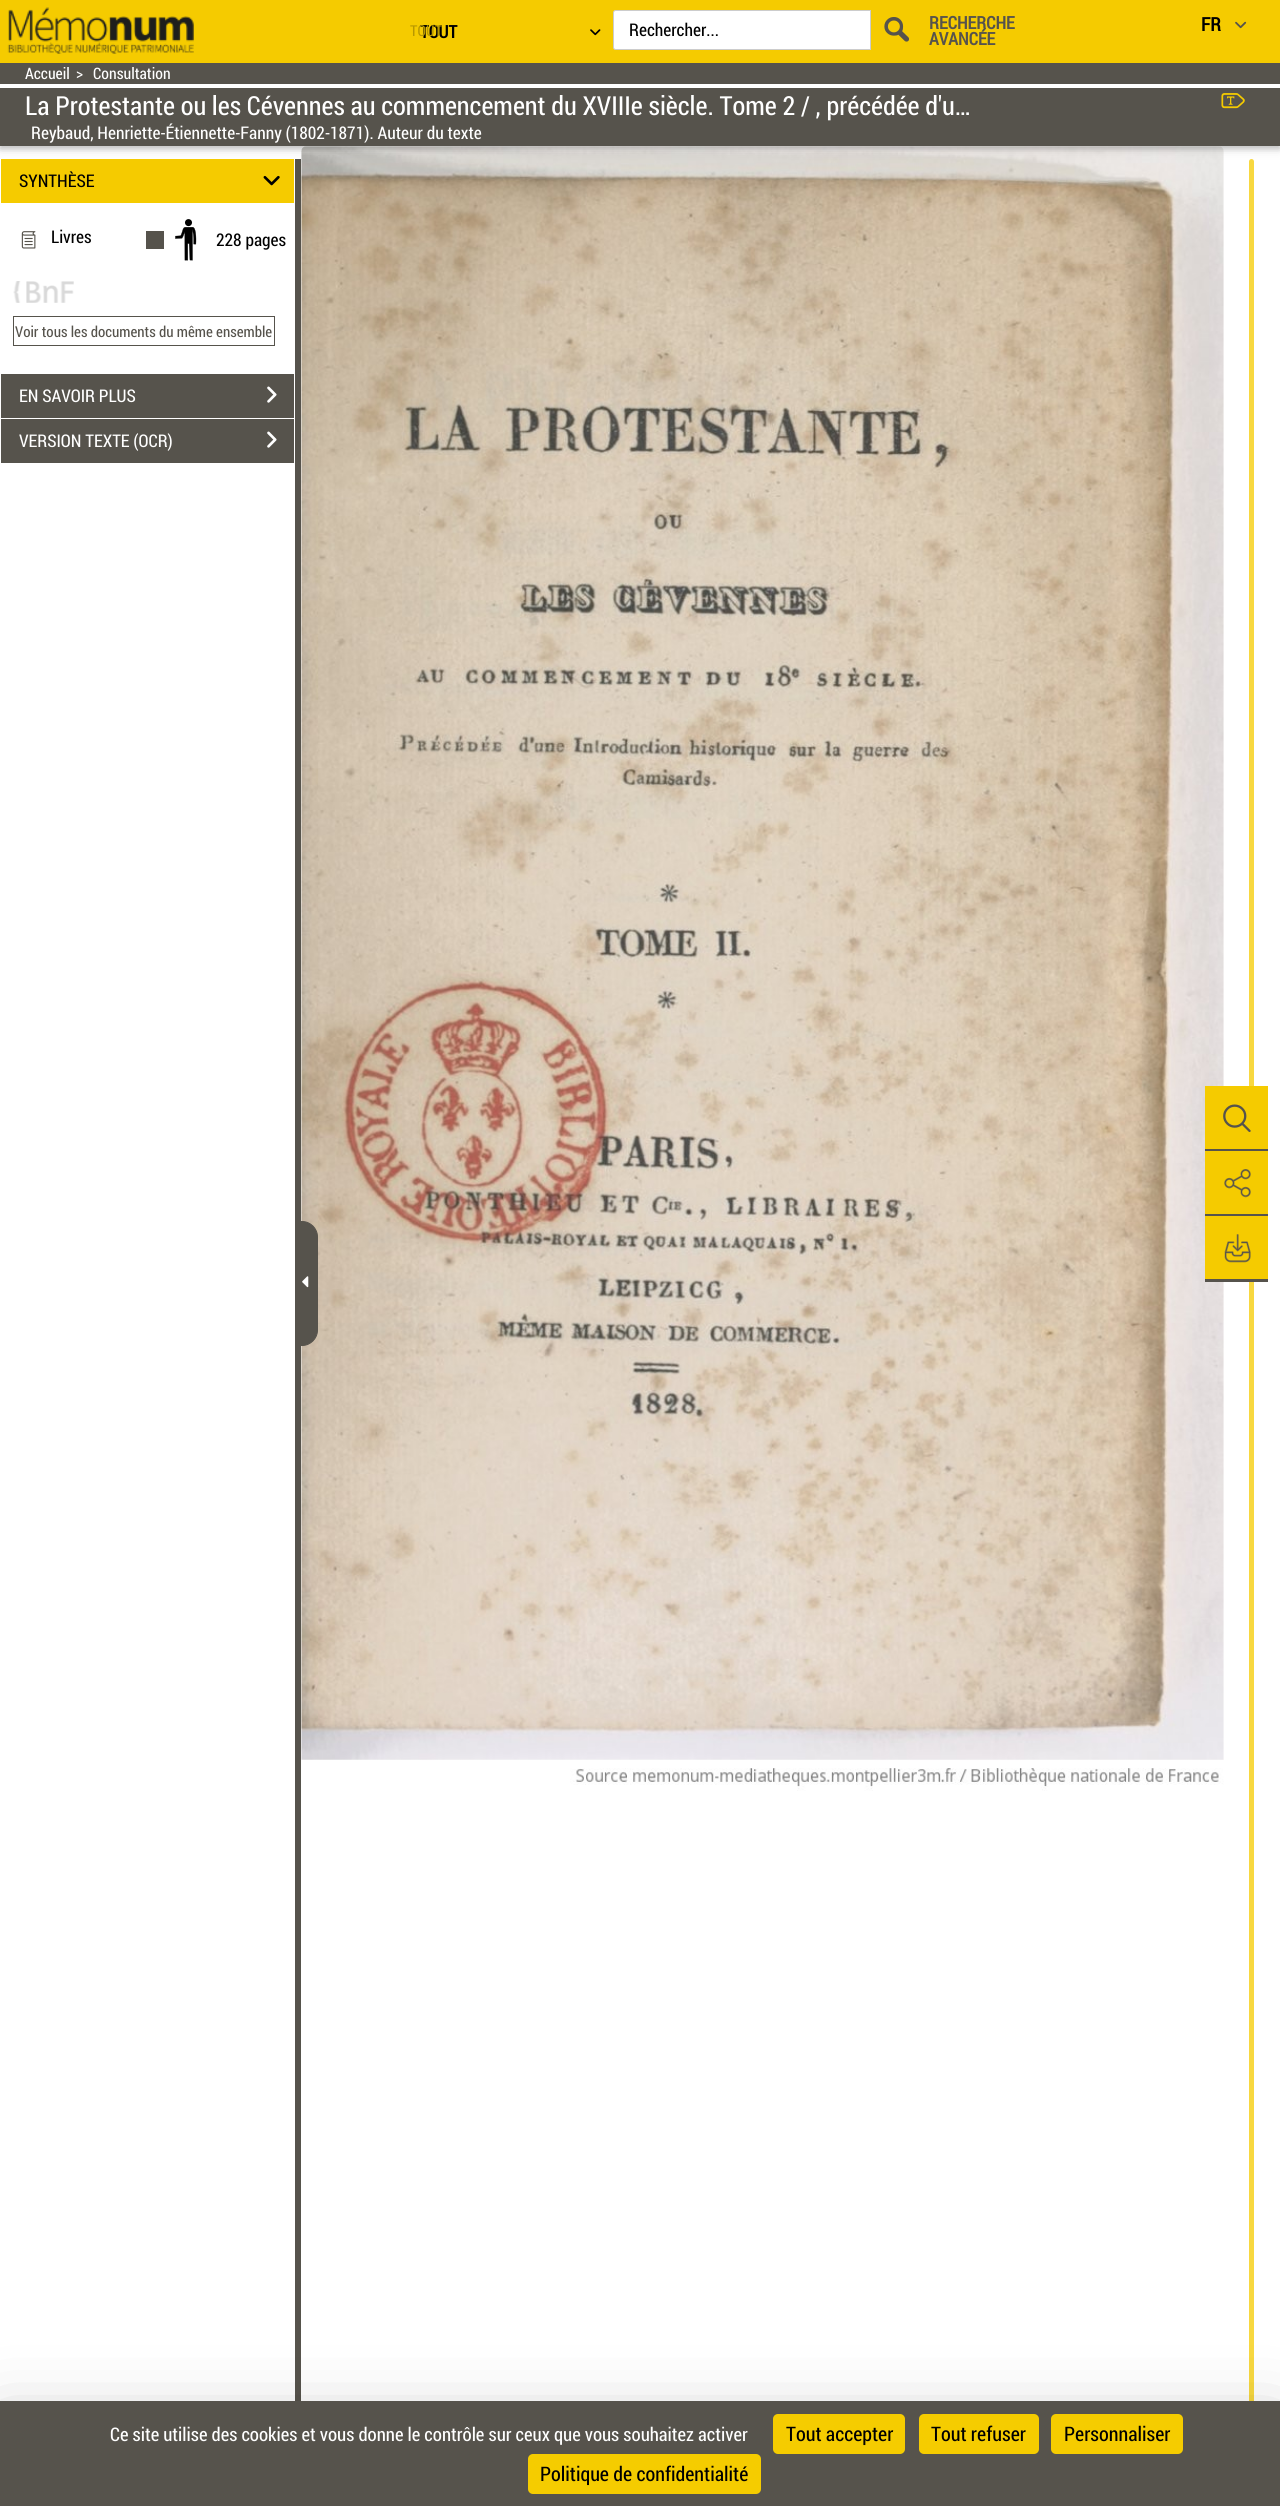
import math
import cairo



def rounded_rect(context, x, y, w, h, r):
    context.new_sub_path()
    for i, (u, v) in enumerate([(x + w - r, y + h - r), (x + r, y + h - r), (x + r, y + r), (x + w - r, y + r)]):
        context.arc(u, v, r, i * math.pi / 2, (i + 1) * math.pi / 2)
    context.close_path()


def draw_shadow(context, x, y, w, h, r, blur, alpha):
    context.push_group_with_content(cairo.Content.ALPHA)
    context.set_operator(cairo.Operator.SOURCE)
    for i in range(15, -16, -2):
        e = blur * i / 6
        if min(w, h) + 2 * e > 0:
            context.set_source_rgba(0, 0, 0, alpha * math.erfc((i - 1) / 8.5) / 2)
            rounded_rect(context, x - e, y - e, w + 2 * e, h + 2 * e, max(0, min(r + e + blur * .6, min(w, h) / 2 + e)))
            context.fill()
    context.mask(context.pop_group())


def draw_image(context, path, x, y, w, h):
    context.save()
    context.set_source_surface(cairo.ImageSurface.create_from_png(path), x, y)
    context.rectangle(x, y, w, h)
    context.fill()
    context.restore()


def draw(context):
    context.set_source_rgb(1, 1, 1)
    context.paint()
    draw_image(context, "images/12.png", 301, 146, 923, 1645)
    context.set_source_rgb(248 / 255, 216 / 255, 64 / 255)
    rounded_rect(context, 1249, 159, 5, 2322, 2.5)
    context.fill()
    context.set_source_rgb(0, 0, 0)
    draw_shadow(context, 0, 65, 1280, 84, 0, 6, 0.12)
    draw_shadow(context, 0, 65, 1280, 84, 0, 2.5, 0.16)
    context.set_source_rgb(245 / 255, 203 / 255, 0)
    context.rectangle(0, 0, 1280, 63)
    context.fill()
    draw_image(context, "images/1.png", 7, 7, 187, 47)
    draw_image(context, "images/2.png", 590, 29, 11, 7)
    context.set_source_rgb(1, 1, 1)
    context.new_path()
    context.move_to(615.5, 10.5)
    context.line_to(870.5, 10.5)
    context.line_to(870.5, 49.5)
    context.line_to(615.5, 49.5)
    context.curve_to(614.5, 49.5, 613.5, 48.5, 613.5, 47.5)
    context.line_to(613.5, 12.5)
    context.curve_to(613.5, 11.5, 614.5, 10.5, 615.5, 10.5)
    context.close_path()
    context.fill_preserve()
    context.set_source_rgb(204 / 255, 204 / 255, 204 / 255)
    context.set_line_width(1)
    context.stroke()
    draw_image(context, "images/3.png", 884, 17, 25, 25)
    draw_image(context, "images/4.png", 1235, 21, 12, 8)
    context.set_source_rgb(86 / 255, 83 / 255, 76 / 255)
    context.rectangle(0, 63, 1280, 83)
    context.fill()
    context.set_source_rgb(1, 1, 1)
    context.rectangle(0, 84, 1280, 4)
    context.fill()
    draw_image(context, "images/5.png", 1221, 93, 24, 16)
    context.set_source_rgb(86 / 255, 83 / 255, 76 / 255)
    context.rectangle(295, 159, 6, 2242)
    context.fill()
    context.set_source_rgb(245 / 255, 203 / 255, 0)
    context.rectangle(1, 159, 293, 44)
    context.fill()
    draw_image(context, "images/6.png", 263, 175, 17, 11)
    draw_image(context, "images/7.png", 21, 231, 15, 18)
    context.set_source_rgb(86 / 255, 83 / 255, 76 / 255)
    context.rectangle(146, 231, 18, 18)
    context.fill()
    draw_image(context, "images/8.png", 175, 219, 22, 42)
    draw_image(context, "images/9.png", 13, 281, 61, 22)
    context.rectangle(13.5, 316.5, 261, 29)
    context.stroke()
    context.rectangle(1, 374, 293, 44)
    context.fill()
    draw_image(context, "images/10.png", 267, 386, 10, 17)
    context.rectangle(1, 419, 293, 44)
    context.fill()
    draw_image(context, "images/10.png", 267, 431, 10, 17)
    context.new_path()
    context.move_to(301.5, 1221.5)
    context.line_to(302, 1221.5)
    context.curve_to(310.5, 1221.5, 317.5, 1228.5, 317.5, 1237)
    context.line_to(317.5, 1330)
    context.curve_to(317.5, 1338.5, 310.5, 1345.5, 302, 1345.5)
    context.line_to(301.5, 1345.5)
    context.close_path()
    context.fill_preserve()
    context.stroke()
    draw_image(context, "images/11.png", 302, 1276, 7, 12)
    context.set_source_rgb(245 / 255, 203 / 255, 0)
    context.rectangle(1205, 1086, 63, 63)
    context.fill()
    draw_image(context, "images/13.png", 1223, 1104, 28, 28)
    context.set_source_rgb(86 / 255, 83 / 255, 76 / 255)
    context.rectangle(1205, 1149, 63, 2)
    context.fill()
    context.set_source_rgb(245 / 255, 203 / 255, 0)
    context.rectangle(1205, 1151, 63, 63)
    context.fill()
    draw_image(context, "images/14.png", 1224, 1169, 27, 29)
    context.set_source_rgb(86 / 255, 83 / 255, 76 / 255)
    context.rectangle(1205, 1214, 63, 2)
    context.fill()
    context.set_source_rgb(245 / 255, 203 / 255, 0)
    context.rectangle(1205, 1216, 63, 63)
    context.fill()
    draw_image(context, "images/15.png", 1224, 1234, 27, 29)
    context.set_source_rgb(86 / 255, 83 / 255, 76 / 255)
    context.rectangle(1205, 1279, 63, 3)
    context.fill()
    context.set_source_rgb(0, 0, 0)
    draw_shadow(context, 0, 2426, 1280, 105, 0, 37.5, 0.25)
    context.set_source_rgb(86 / 255, 83 / 255, 76 / 255)
    context.rectangle(0, 2401, 1280, 105)
    context.fill()
    context.set_source_rgb(245 / 255, 204 / 255, 0)
    rounded_rect(context, 773, 2414, 132, 40, 5)
    context.fill()
    rounded_rect(context, 919, 2414, 120, 40, 5)
    context.fill()
    rounded_rect(context, 1051, 2414, 132, 40, 5)
    context.fill()
    rounded_rect(context, 528, 2454, 233, 40, 5)
    context.fill()
    context.select_font_face("Roboto Condensed", cairo.FontSlant.NORMAL, cairo.FontWeight.BOLD)
    context.set_font_size(17.5)
    context.set_source_rgb(0, 0, 0)
    context.move_to(420, 38)
    context.show_text("TOUT")
    context.select_font_face("Roboto Condensed")
    context.set_font_size(15)
    context.set_source_rgb(184 / 255, 152 / 255, 0)
    context.move_to(410, 36)
    context.show_text("TOUT")
    context.set_font_size(17.5)
    context.set_source_rgb(0, 0, 0)
    context.move_to(629, 36)
    context.show_text("Rechercher...")
    context.select_font_face("Roboto Condensed", cairo.FontSlant.NORMAL, cairo.FontWeight.BOLD)
    context.set_source_rgb(86 / 255, 83 / 255, 76 / 255)
    context.move_to(929, 29)
    context.show_text("RECHERCHE")
    context.move_to(929, 45)
    context.show_text("AVANCÉE")
    context.set_font_size(18.75)
    context.set_source_rgb(0, 0, 0)
    context.move_to(1201, 31)
    context.show_text("FR")
    context.select_font_face("Roboto Condensed")
    context.set_font_size(15.75)
    context.set_source_rgb(1, 1, 1)
    context.move_to(25, 79)
    context.show_text("Accueil")
    context.move_to(76, 79)
    context.show_text(">")
    context.move_to(93, 79)
    context.show_text("Consultation")
    context.set_font_size(26.25)
    context.move_to(25, 115)
    context.show_text("La Protestante ou les Cévennes au commencement du XVIIIe siècle. Tome 2 / , précédée d'u…")
    context.set_font_size(17.5)
    context.move_to(31, 139)
    context.show_text("Reybaud, Henriette-Étiennette-Fanny (1802-1871). Auteur du texte")
    context.set_source_rgb(0, 0, 0)
    context.move_to(19, 187)
    context.show_text("SYNTHÈSE")
    context.move_to(51, 243)
    context.show_text("Livres")
    context.move_to(216, 246)
    context.show_text("228 pages")
    context.set_font_size(15)
    context.set_source_rgb(86 / 255, 83 / 255, 76 / 255)
    context.move_to(15, 337)
    context.show_text("Voir tous les documents du même ensemble")
    context.set_font_size(17.5)
    context.set_source_rgb(1, 1, 1)
    context.move_to(19, 402)
    context.show_text("EN SAVOIR PLUS")
    context.move_to(19, 447)
    context.show_text("VERSION TEXTE (OCR)")
    context.set_font_size(18.75)
    context.move_to(110, 2441)
    context.show_text("Ce site utilise des cookies et vous donne le contrôle sur ceux que vous souhaitez activer")
    context.set_font_size(20)
    context.set_source_rgb(0, 0, 0)
    context.move_to(786, 2441)
    context.show_text("Tout accepter")
    context.move_to(931, 2441)
    context.show_text("Tout refuser")
    context.move_to(1064, 2441)
    context.show_text("Personnaliser")
    context.move_to(540, 2481)
    context.show_text("Politique de confidentialité")


surface = cairo.ImageSurface(cairo.Format.RGB24, 1280, 2506)
context = cairo.Context(surface)
options = cairo.FontOptions()
options.set_hint_metrics(cairo.HintMetrics.OFF)
options.set_hint_style(cairo.HintStyle.NONE)
context.set_font_options(options)
context.set_miter_limit(4)
draw(context)
surface.write_to_png("out.png")
